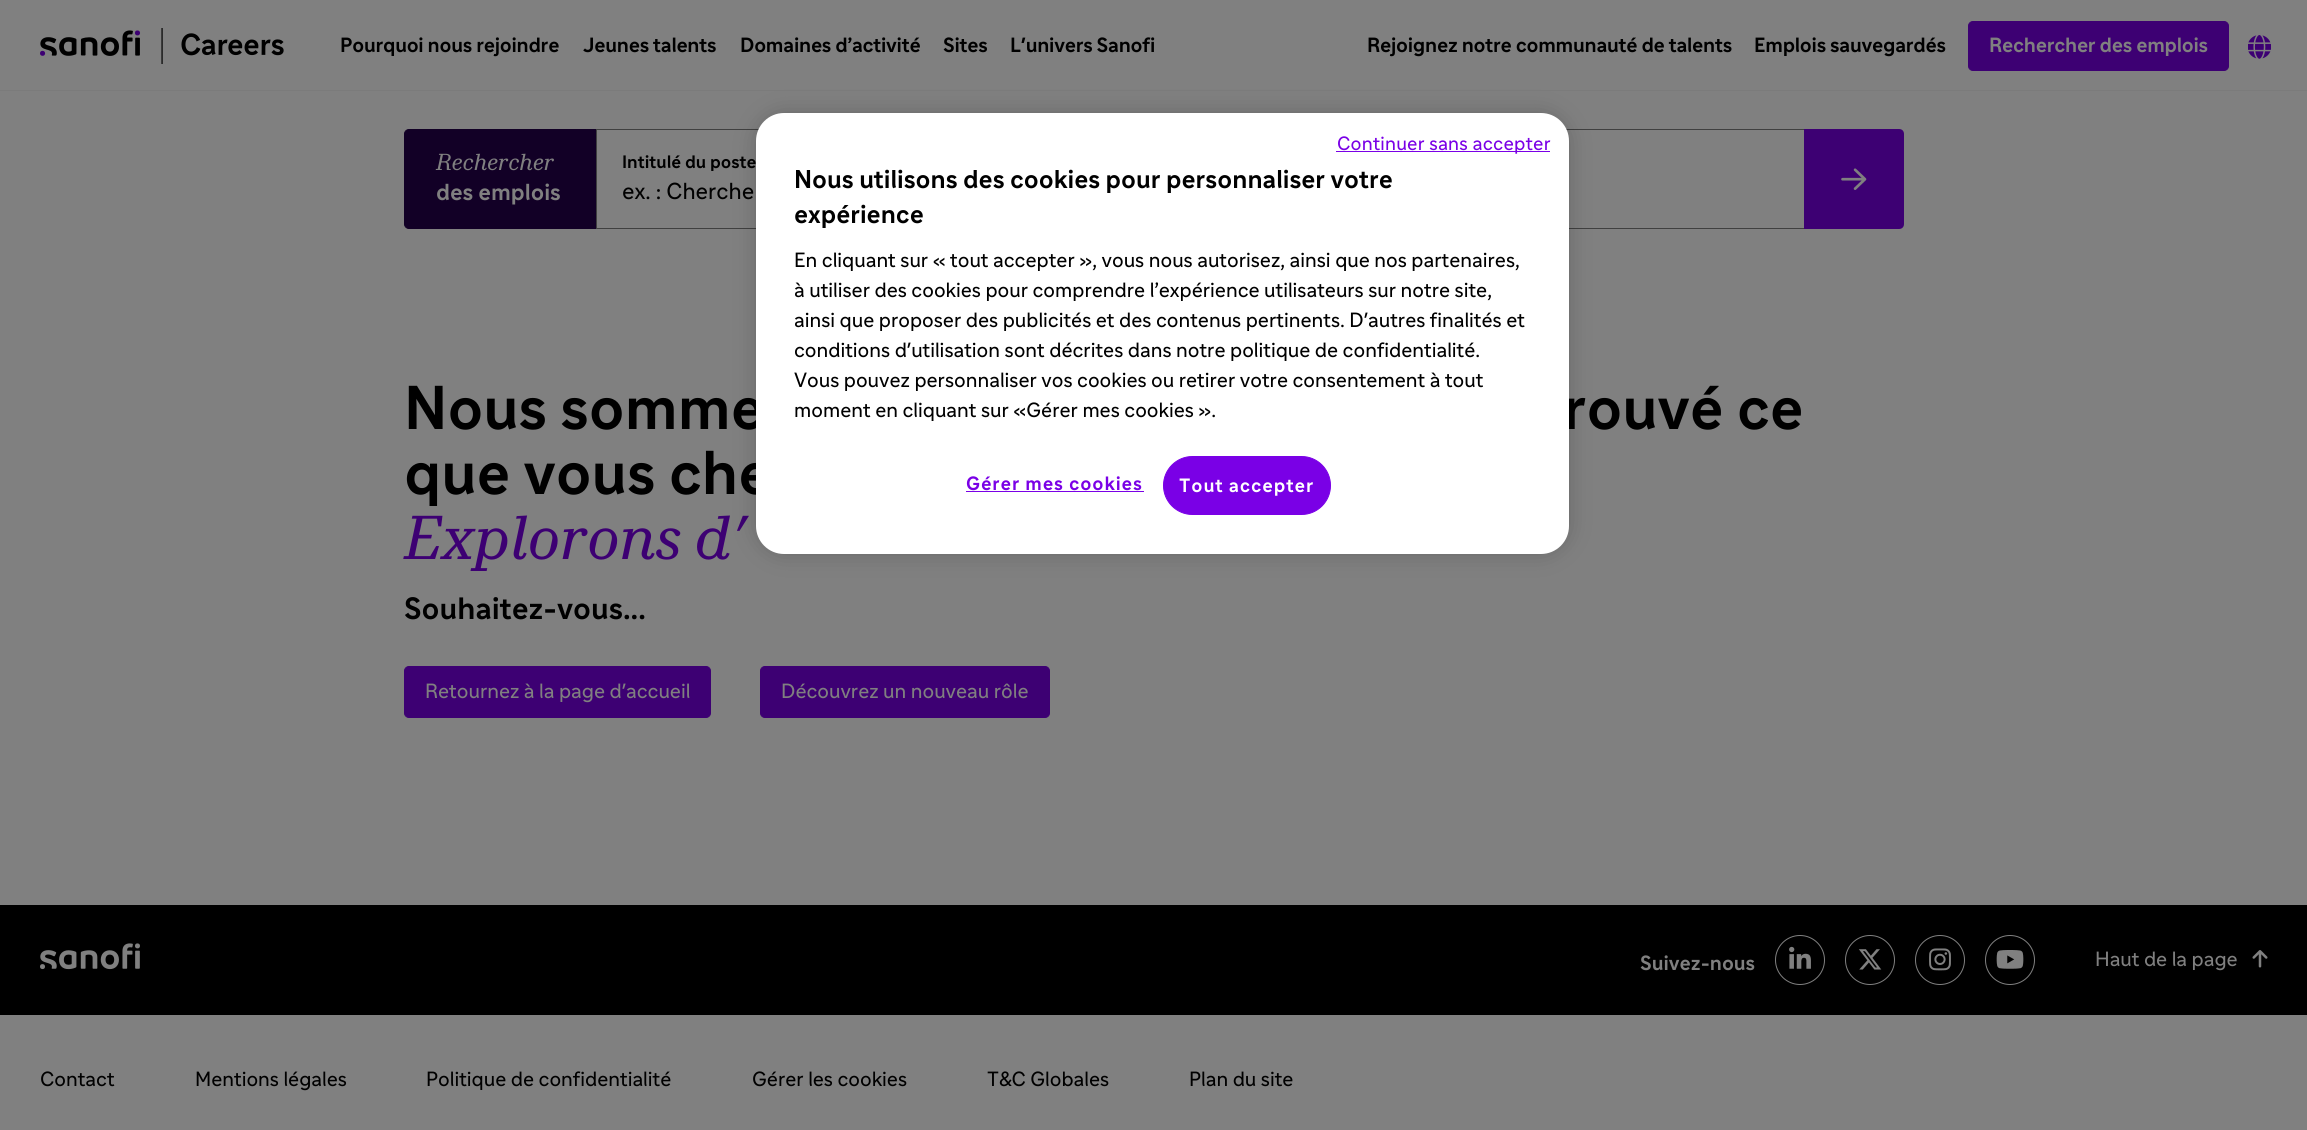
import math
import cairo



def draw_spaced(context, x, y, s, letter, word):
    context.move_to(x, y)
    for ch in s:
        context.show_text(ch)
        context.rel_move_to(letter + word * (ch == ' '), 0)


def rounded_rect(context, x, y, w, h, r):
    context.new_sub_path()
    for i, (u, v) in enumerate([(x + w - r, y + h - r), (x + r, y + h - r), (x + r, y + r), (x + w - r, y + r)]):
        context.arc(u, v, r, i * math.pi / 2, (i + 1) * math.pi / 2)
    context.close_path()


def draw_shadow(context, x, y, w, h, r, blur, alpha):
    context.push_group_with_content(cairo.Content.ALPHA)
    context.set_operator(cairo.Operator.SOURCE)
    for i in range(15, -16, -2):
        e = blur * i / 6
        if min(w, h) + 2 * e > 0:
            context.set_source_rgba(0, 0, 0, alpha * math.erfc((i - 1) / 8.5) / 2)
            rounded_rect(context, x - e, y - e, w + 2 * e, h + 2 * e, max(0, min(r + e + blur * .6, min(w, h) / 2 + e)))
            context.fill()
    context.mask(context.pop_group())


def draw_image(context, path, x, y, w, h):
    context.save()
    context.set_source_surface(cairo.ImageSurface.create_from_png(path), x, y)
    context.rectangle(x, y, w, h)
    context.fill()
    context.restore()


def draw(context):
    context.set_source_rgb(128 / 255, 128 / 255, 128 / 255)
    context.paint()
    context.set_source_rgb(123 / 255, 123 / 255, 123 / 255)
    context.rectangle(0, 90, 2307, 1)
    context.fill()
    draw_image(context, "images/1.png", 40, 28, 244, 36)
    context.set_source_rgb(61 / 255, 0, 115 / 255)
    rounded_rect(context, 1968.5, 21.5, 260, 49, 4.5)
    context.fill_preserve()
    context.set_line_width(1)
    context.stroke()
    draw_image(context, "images/2.png", 2248, 35, 23, 24)
    context.set_source_rgb(18 / 255, 0, 38 / 255)
    context.new_path()
    context.move_to(409, 129.5)
    context.line_to(595.5, 129.5)
    context.line_to(595.5, 228.5)
    context.line_to(409, 228.5)
    context.curve_to(406.5, 228.5, 404.5, 226.5, 404.5, 224)
    context.line_to(404.5, 134)
    context.curve_to(404.5, 131.5, 406.5, 129.5, 409, 129.5)
    context.close_path()
    context.fill_preserve()
    context.stroke()
    context.set_source_rgb(64 / 255, 64 / 255, 64 / 255)
    context.rectangle(596, 129, 163, 1)
    context.fill()
    context.rectangle(596, 228, 160, 1)
    context.fill()
    context.rectangle(596, 129, 1, 100)
    context.fill()
    context.rectangle(1566, 129, 238, 1)
    context.fill()
    context.rectangle(1569, 228, 235, 1)
    context.fill()
    context.set_source_rgb(61 / 255, 0, 115 / 255)
    context.new_path()
    context.move_to(1804, 129)
    context.line_to(1899, 129)
    context.curve_to(1902, 129, 1904, 131, 1904, 134)
    context.line_to(1904, 224)
    context.curve_to(1904, 227, 1902, 229, 1899, 229)
    context.line_to(1804, 229)
    context.close_path()
    context.fill()
    draw_image(context, "images/3.png", 1841, 168, 26, 22)
    rounded_rect(context, 404.5, 666.5, 306, 51, 4.5)
    context.fill_preserve()
    context.stroke()
    rounded_rect(context, 760.5, 666.5, 289, 51, 4.5)
    context.fill_preserve()
    context.stroke()
    context.set_source_rgb(0, 0, 0)
    context.rectangle(0, 905, 2307, 110)
    context.fill()
    draw_image(context, "images/4.png", 40, 943, 100, 27)
    context.arc(1800, 960, 24.5, 0, 2 * math.pi)
    context.set_source_rgb(128 / 255, 128 / 255, 128 / 255)
    context.stroke()
    draw_image(context, "images/5.png", 1789, 946, 22, 23)
    context.arc(1870, 960, 24.5, 0, 2 * math.pi)
    context.stroke()
    draw_image(context, "images/6.png", 1858, 949, 24, 21)
    context.arc(1940, 960, 24.5, 0, 2 * math.pi)
    context.stroke()
    draw_image(context, "images/7.png", 1929, 948, 22, 23)
    context.arc(2010, 960, 24.5, 0, 2 * math.pi)
    context.stroke()
    draw_image(context, "images/8.png", 1996, 950, 28, 19)
    draw_image(context, "images/9.png", 2252, 950, 16, 18)
    context.select_font_face("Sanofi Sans", cairo.FontSlant.NORMAL, cairo.FontWeight.BOLD)
    context.set_font_size(20)
    context.set_source_rgb(0, 0, 0)
    draw_spaced(context, 340, 52, "Pourquoi nous rejoindre", -0.25, 0)
    draw_spaced(context, 583, 52, "Jeunes talents", -0.25, 0)
    draw_spaced(context, 740, 52, "Domaines d’activité", -0.25, 0)
    draw_spaced(context, 943, 52, "Sites", -0.25, 0)
    draw_spaced(context, 1010, 52, "L'univers Sanofi", -0.25, 0)
    draw_spaced(context, 1367, 52, "Rejoignez notre communauté de talents", -0.25, 0)
    draw_spaced(context, 1754, 52, "Emplois sauvegardés", -0.25, 0)
    context.set_source_rgb(128 / 255, 128 / 255, 128 / 255)
    draw_spaced(context, 1989, 52, "Rechercher des emplois", -0.25, 0)
    context.select_font_face("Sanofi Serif", cairo.FontSlant.ITALIC)
    context.set_font_size(22.5)
    context.move_to(436, 170)
    context.show_text("Rechercher")
    context.select_font_face("Sanofi Sans", cairo.FontSlant.NORMAL, cairo.FontWeight.BOLD)
    context.move_to(436, 200)
    context.show_text("des emplois")
    context.set_font_size(17.5)
    context.set_source_rgb(0, 0, 0)
    context.move_to(622, 168)
    context.show_text("Intitulé du poste")
    context.set_source_rgb(128 / 255, 128 / 255, 128 / 255)
    rounded_rect(context, 623, 171, 552, 57, 5)
    context.fill()
    context.select_font_face("Sanofi Sans")
    context.set_font_size(22.5)
    context.set_source_rgb(0, 0, 0)
    context.move_to(622, 199)
    context.show_text("ex. : Cherche")
    context.select_font_face("Sanofi Sans", cairo.FontSlant.NORMAL, cairo.FontWeight.BOLD)
    context.set_font_size(60)
    context.move_to(404, 429)
    context.show_text("Nous somme")
    context.move_to(1563, 429)
    context.show_text("rouvé ce")
    context.move_to(404, 494)
    context.show_text("que vous che")
    context.select_font_face("Sanofi Serif", cairo.FontSlant.ITALIC)
    context.set_source_rgb(61 / 255, 0, 115 / 255)
    context.move_to(404, 559)
    context.show_text("Explorons d'")
    context.select_font_face("Sanofi Sans", cairo.FontSlant.NORMAL, cairo.FontWeight.BOLD)
    context.set_font_size(30)
    context.set_source_rgb(0, 0, 0)
    context.move_to(404, 619)
    context.show_text("Souhaitez-vous...")
    context.select_font_face("Sanofi Sans")
    context.set_font_size(20)
    context.set_source_rgb(128 / 255, 128 / 255, 128 / 255)
    context.move_to(425, 698)
    context.show_text("Retournez à la page d'accueil")
    context.move_to(781, 698)
    context.show_text("Découvrez un nouveau rôle")
    context.select_font_face("Sanofi Sans", cairo.FontSlant.NORMAL, cairo.FontWeight.BOLD)
    context.move_to(1640, 970)
    context.show_text("Suivez-nous")
    context.select_font_face("Sanofi Sans")
    context.move_to(2095, 966)
    context.show_text("Haut de la page")
    context.set_source_rgb(0, 0, 0)
    context.move_to(40, 1086)
    context.show_text("Contact")
    context.move_to(195, 1086)
    context.show_text("Mentions légales")
    context.move_to(426, 1086)
    context.show_text("Politique de confidentialité")
    context.move_to(752, 1086)
    context.show_text("Gérer les cookies")
    context.move_to(987, 1086)
    context.show_text("T&C Globales")
    context.move_to(1189, 1086)
    context.show_text("Plan du site")
    context.set_source_rgb(0, 0, 0)
    draw_shadow(context, 756, 113, 813, 441, 28, 11, 0.2)
    context.set_source_rgb(1, 1, 1)
    rounded_rect(context, 756, 113, 813, 441, 28)
    context.fill()
    context.set_source_rgb(122 / 255, 0, 230 / 255)
    context.rectangle(1336, 151, 214, 1)
    context.fill()
    context.set_font_size(18.75)
    draw_spaced(context, 1337, 150, "Continuer sans accepter", 0.2, 0)
    context.select_font_face("Sanofi Sans", cairo.FontSlant.NORMAL, cairo.FontWeight.BOLD)
    context.set_font_size(25)
    context.set_source_rgb(0, 0, 0)
    context.move_to(794, 188)
    context.show_text("Nous utilisons des cookies pour personnaliser votre")
    context.move_to(794, 223)
    context.show_text("expérience")
    context.select_font_face("Sanofi Sans")
    context.set_font_size(20)
    context.move_to(794, 267)
    context.show_text("En cliquant sur « tout accepter », vous nous autorisez, ainsi que nos partenaires,")
    context.move_to(794, 297)
    context.show_text("à utiliser des cookies pour comprendre l’expérience utilisateurs sur notre site,")
    context.move_to(794, 327)
    context.show_text("ainsi que proposer des publicités et des contenus pertinents. D'autres finalités et")
    context.move_to(794, 357)
    context.show_text("conditions d'utilisation sont décrites dans notre politique de confidentialité.")
    context.move_to(794, 387)
    context.show_text("Vous pouvez personnaliser vos cookies ou retirer votre consentement à tout")
    context.move_to(794, 417)
    context.show_text("moment en cliquant sur «Gérer mes cookies ».")
    context.select_font_face("Sanofi Sans", cairo.FontSlant.NORMAL, cairo.FontWeight.BOLD)
    context.set_font_size(18.75)
    context.set_source_rgb(122 / 255, 0, 230 / 255)
    draw_spaced(context, 966, 490, "Gérer mes cookies", 0.9, 0)
    context.rectangle(966, 491, 178, 1)
    context.fill()
    rounded_rect(context, 1163.5, 456.5, 167, 58, 29)
    context.fill_preserve()
    context.stroke()
    context.set_source_rgb(1, 1, 1)
    draw_spaced(context, 1179, 492, "Tout accepter", 0.9, 0)


surface = cairo.ImageSurface(cairo.Format.RGB24, 2307, 1130)
context = cairo.Context(surface)
options = cairo.FontOptions()
options.set_hint_metrics(cairo.HintMetrics.OFF)
options.set_hint_style(cairo.HintStyle.NONE)
context.set_font_options(options)
context.set_miter_limit(4)
draw(context)
surface.write_to_png("out.png")
